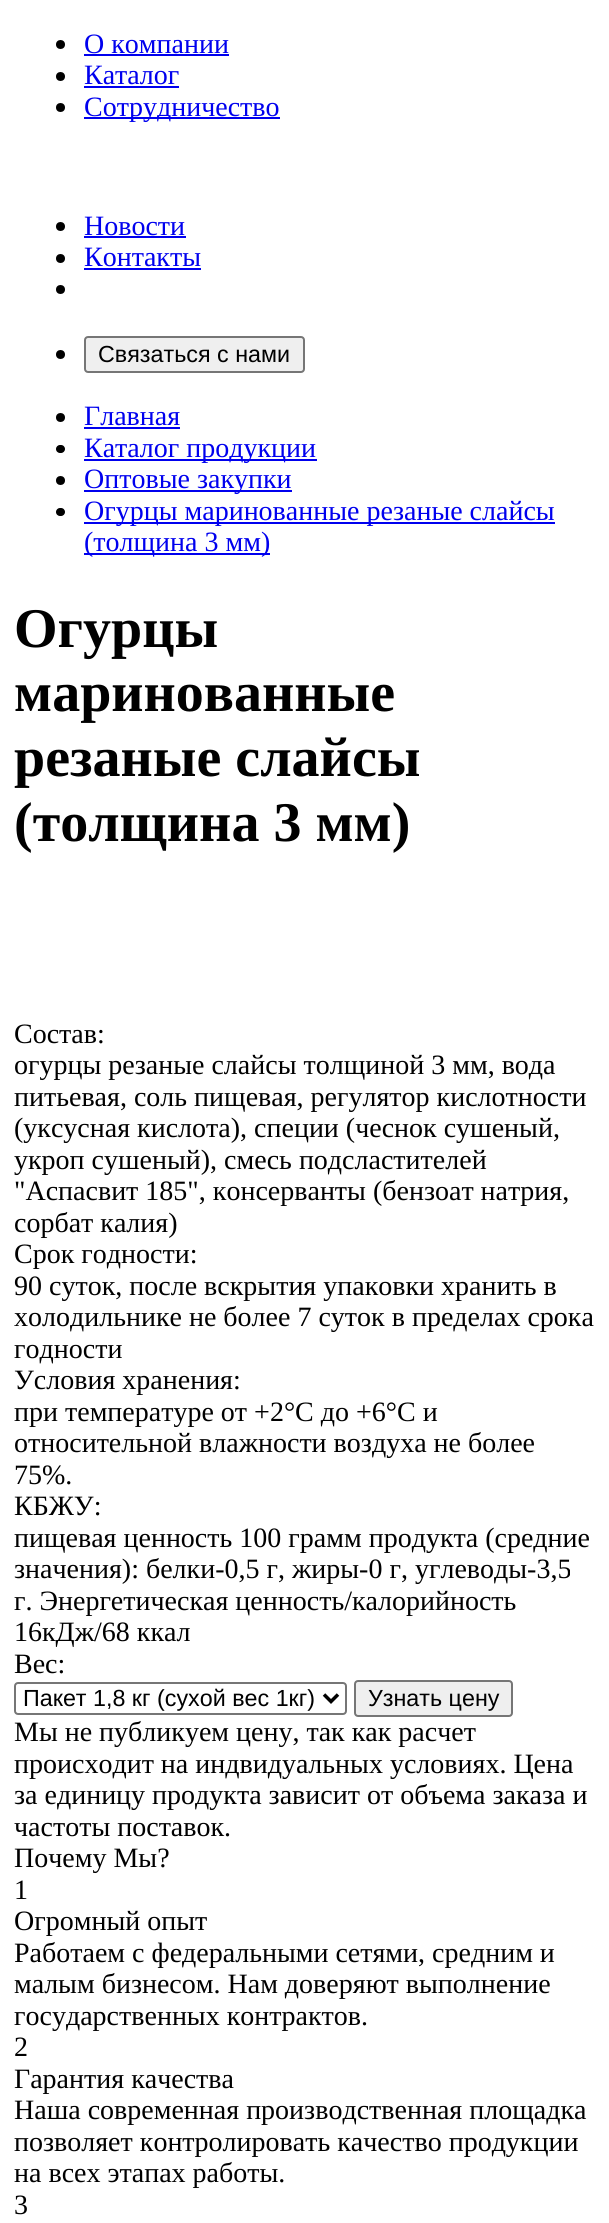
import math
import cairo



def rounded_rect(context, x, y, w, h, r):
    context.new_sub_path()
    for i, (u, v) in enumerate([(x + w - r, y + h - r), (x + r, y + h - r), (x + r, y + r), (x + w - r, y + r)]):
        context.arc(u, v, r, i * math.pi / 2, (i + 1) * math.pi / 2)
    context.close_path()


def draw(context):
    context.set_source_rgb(1, 1, 1)
    context.paint()
    context.set_source_rgb(0, 0, 0)
    context.arc(60.5, 44.5, 4.5, 0, 2 * math.pi)
    context.fill()
    context.set_source_rgb(0, 0, 238 / 255)
    context.rectangle(84, 54, 145, 2)
    context.fill()
    context.set_source_rgb(0, 0, 0)
    context.arc(60.5, 76.5, 4.5, 0, 2 * math.pi)
    context.fill()
    context.set_source_rgb(0, 0, 238 / 255)
    context.rectangle(84, 86, 95, 2)
    context.fill()
    context.set_source_rgb(0, 0, 0)
    context.arc(60.5, 107.5, 4.5, 0, 2 * math.pi)
    context.fill()
    context.set_source_rgb(0, 0, 238 / 255)
    context.rectangle(84, 117, 196, 2)
    context.fill()
    context.set_source_rgb(0, 0, 0)
    context.arc(60.5, 226.5, 4.5, 0, 2 * math.pi)
    context.fill()
    context.set_source_rgb(0, 0, 238 / 255)
    context.rectangle(84, 236, 102, 2)
    context.fill()
    context.set_source_rgb(0, 0, 0)
    context.arc(60.5, 258.5, 4.5, 0, 2 * math.pi)
    context.fill()
    context.set_source_rgb(0, 0, 238 / 255)
    context.rectangle(84, 268, 117, 2)
    context.fill()
    context.set_source_rgb(0, 0, 0)
    context.arc(60.5, 289.5, 4.5, 0, 2 * math.pi)
    context.fill()
    context.arc(60.5, 354.5, 4.5, 0, 2 * math.pi)
    context.fill()
    context.set_source_rgb(239 / 255, 239 / 255, 239 / 255)
    rounded_rect(context, 85, 337, 219, 35, 3)
    context.fill_preserve()
    context.set_source_rgb(118 / 255, 118 / 255, 118 / 255)
    context.stroke()
    context.set_source_rgb(0, 0, 0)
    context.arc(60.5, 417.5, 4.5, 0, 2 * math.pi)
    context.fill()
    context.set_source_rgb(0, 0, 238 / 255)
    context.rectangle(84, 427, 96, 2)
    context.fill()
    context.set_source_rgb(0, 0, 0)
    rounded_rect(context, 56, 445, 9, 8, 4)
    context.fill()
    context.set_source_rgb(0, 0, 238 / 255)
    context.rectangle(84, 459, 233, 2)
    context.fill()
    context.set_source_rgb(0, 0, 0)
    context.arc(60.5, 480.5, 4.5, 0, 2 * math.pi)
    context.fill()
    context.set_source_rgb(0, 0, 238 / 255)
    context.rectangle(84, 490, 208, 2)
    context.fill()
    context.set_source_rgb(0, 0, 0)
    rounded_rect(context, 56, 508, 9, 8, 4)
    context.fill()
    context.set_source_rgb(0, 0, 238 / 255)
    context.rectangle(84, 522, 471, 2)
    context.fill()
    context.rectangle(84, 553, 186, 2)
    context.fill()
    rounded_rect(context, 15, 1683, 331, 31, 3)
    context.set_source_rgb(118 / 255, 118 / 255, 118 / 255)
    context.stroke()
    context.new_path()
    context.move_to(324, 1694.5)
    context.line_to(331, 1701.5)
    context.line_to(338, 1694.5)
    context.set_source_rgb(0, 0, 0)
    context.set_line_width(3.5)
    context.stroke()
    context.set_source_rgb(239 / 255, 239 / 255, 239 / 255)
    rounded_rect(context, 355, 1681, 157, 35, 3)
    context.fill_preserve()
    context.set_source_rgb(118 / 255, 118 / 255, 118 / 255)
    context.set_line_width(2)
    context.stroke()
    context.select_font_face("Liberation Serif")
    context.set_font_size(28)
    context.set_source_rgb(0, 0, 238 / 255)
    context.move_to(84, 53)
    context.show_text("О компании")
    context.move_to(84, 84)
    context.show_text("Каталог")
    context.move_to(84, 116)
    context.show_text("Сотрудничество")
    context.move_to(84, 235)
    context.show_text("Новости")
    context.move_to(84, 266)
    context.show_text("Контакты")
    context.select_font_face("Liberation Sans")
    context.set_font_size(23.3)
    context.set_source_rgb(0, 0, 0)
    context.move_to(98, 362)
    context.show_text("Связаться с нами")
    context.select_font_face("Liberation Serif")
    context.set_font_size(28)
    context.set_source_rgb(0, 0, 238 / 255)
    context.move_to(84, 425)
    context.show_text("Главная")
    context.move_to(84, 457)
    context.show_text("Каталог продукции")
    context.move_to(84, 488)
    context.show_text("Оптовые закупки")
    context.move_to(84, 520)
    context.show_text("Огурцы маринованные резаные слайсы")
    context.move_to(84, 551)
    context.show_text("(толщина 3 мм)")
    context.select_font_face("Liberation Serif", cairo.FontSlant.NORMAL, cairo.FontWeight.BOLD)
    context.set_font_size(56)
    context.set_source_rgb(0, 0, 0)
    context.move_to(14, 647)
    context.show_text("Огурцы")
    context.move_to(14, 711)
    context.show_text("маринованные")
    context.move_to(14, 776)
    context.show_text("резаные слайсы")
    context.move_to(14, 841)
    context.show_text("(толщина 3 мм)")
    context.select_font_face("Liberation Serif")
    context.set_font_size(28)
    context.move_to(14, 1043)
    context.show_text("Состав:")
    context.move_to(14, 1074)
    context.show_text("огурцы резаные слайсы толщиной 3 мм, вода")
    context.move_to(14, 1106)
    context.show_text("питьевая, соль пищевая, регулятор кислотности")
    context.move_to(14, 1137)
    context.show_text("(уксусная кислота), специи (чеснок сушеный,")
    context.move_to(14, 1169)
    context.show_text("укроп сушеный), смесь подсластителей")
    context.move_to(14, 1200)
    context.show_text("\"Аспасвит 185\", консерванты (бензоат натрия,")
    context.move_to(14, 1232)
    context.show_text("сорбат калия)")
    context.move_to(14, 1263)
    context.show_text("Срок годности:")
    context.move_to(14, 1295)
    context.show_text("90 суток, после вскрытия упаковки хранить в")
    context.move_to(14, 1326)
    context.show_text("холодильнике не более 7 суток в пределах срока")
    context.move_to(14, 1358)
    context.show_text("годности")
    context.move_to(14, 1389)
    context.show_text("Условия хранения:")
    context.move_to(14, 1421)
    context.show_text("при температуре от +2°С до +6°С и")
    context.move_to(14, 1452)
    context.show_text("относительной влажности воздуха не более")
    context.move_to(14, 1484)
    context.show_text("75%.")
    context.move_to(14, 1515)
    context.show_text("КБЖУ:")
    context.move_to(14, 1547)
    context.show_text("пищевая ценность 100 грамм продукта (средние")
    context.move_to(14, 1578)
    context.show_text("значения): белки-0,5 г, жиры-0 г, углеводы-3,5")
    context.move_to(14, 1610)
    context.show_text("г. Энергетическая ценность/калорийность")
    context.move_to(14, 1641)
    context.show_text("16кДж/68 ккал")
    context.move_to(14, 1673)
    context.show_text("Вес:")
    context.select_font_face("Liberation Sans")
    context.set_font_size(23.3)
    context.move_to(23, 1706)
    context.show_text("Пакет 1,8 кг (сухой вес 1кг)")
    context.move_to(368, 1706)
    context.show_text("Узнать цену")
    context.select_font_face("Liberation Serif")
    context.set_font_size(28)
    context.move_to(14, 1741)
    context.show_text("Мы не публикуем цену, так как расчет")
    context.move_to(14, 1773)
    context.show_text("происходит на индвидуальных условиях. Цена")
    context.move_to(14, 1804)
    context.show_text("за единицу продукта зависит от объема заказа и")
    context.move_to(14, 1836)
    context.show_text("частоты поставок.")
    context.move_to(14, 1867)
    context.show_text("Почему Мы?")
    context.move_to(14, 1899)
    context.show_text("1")
    context.move_to(14, 1930)
    context.show_text("Огромный опыт")
    context.move_to(14, 1962)
    context.show_text("Работаем с федеральными сетями, средним и")
    context.move_to(14, 1993)
    context.show_text("малым бизнесом. Нам доверяют выполнение")
    context.move_to(14, 2025)
    context.show_text("государственных контрактов.")
    context.move_to(14, 2056)
    context.show_text("2")
    context.move_to(14, 2088)
    context.show_text("Гарантия качества")
    context.move_to(14, 2119)
    context.show_text("Наша современная производственная площадка")
    context.move_to(14, 2151)
    context.show_text("позволяет контролировать качество продукции")
    context.move_to(14, 2182)
    context.show_text("на всех этапах работы.")
    context.move_to(14, 2214)
    context.show_text("3")


surface = cairo.ImageSurface(cairo.Format.RGB24, 609, 2223)
context = cairo.Context(surface)
options = cairo.FontOptions()
options.set_hint_metrics(cairo.HintMetrics.OFF)
options.set_hint_style(cairo.HintStyle.NONE)
context.set_font_options(options)
context.set_miter_limit(4)
draw(context)
surface.write_to_png("out.png")
